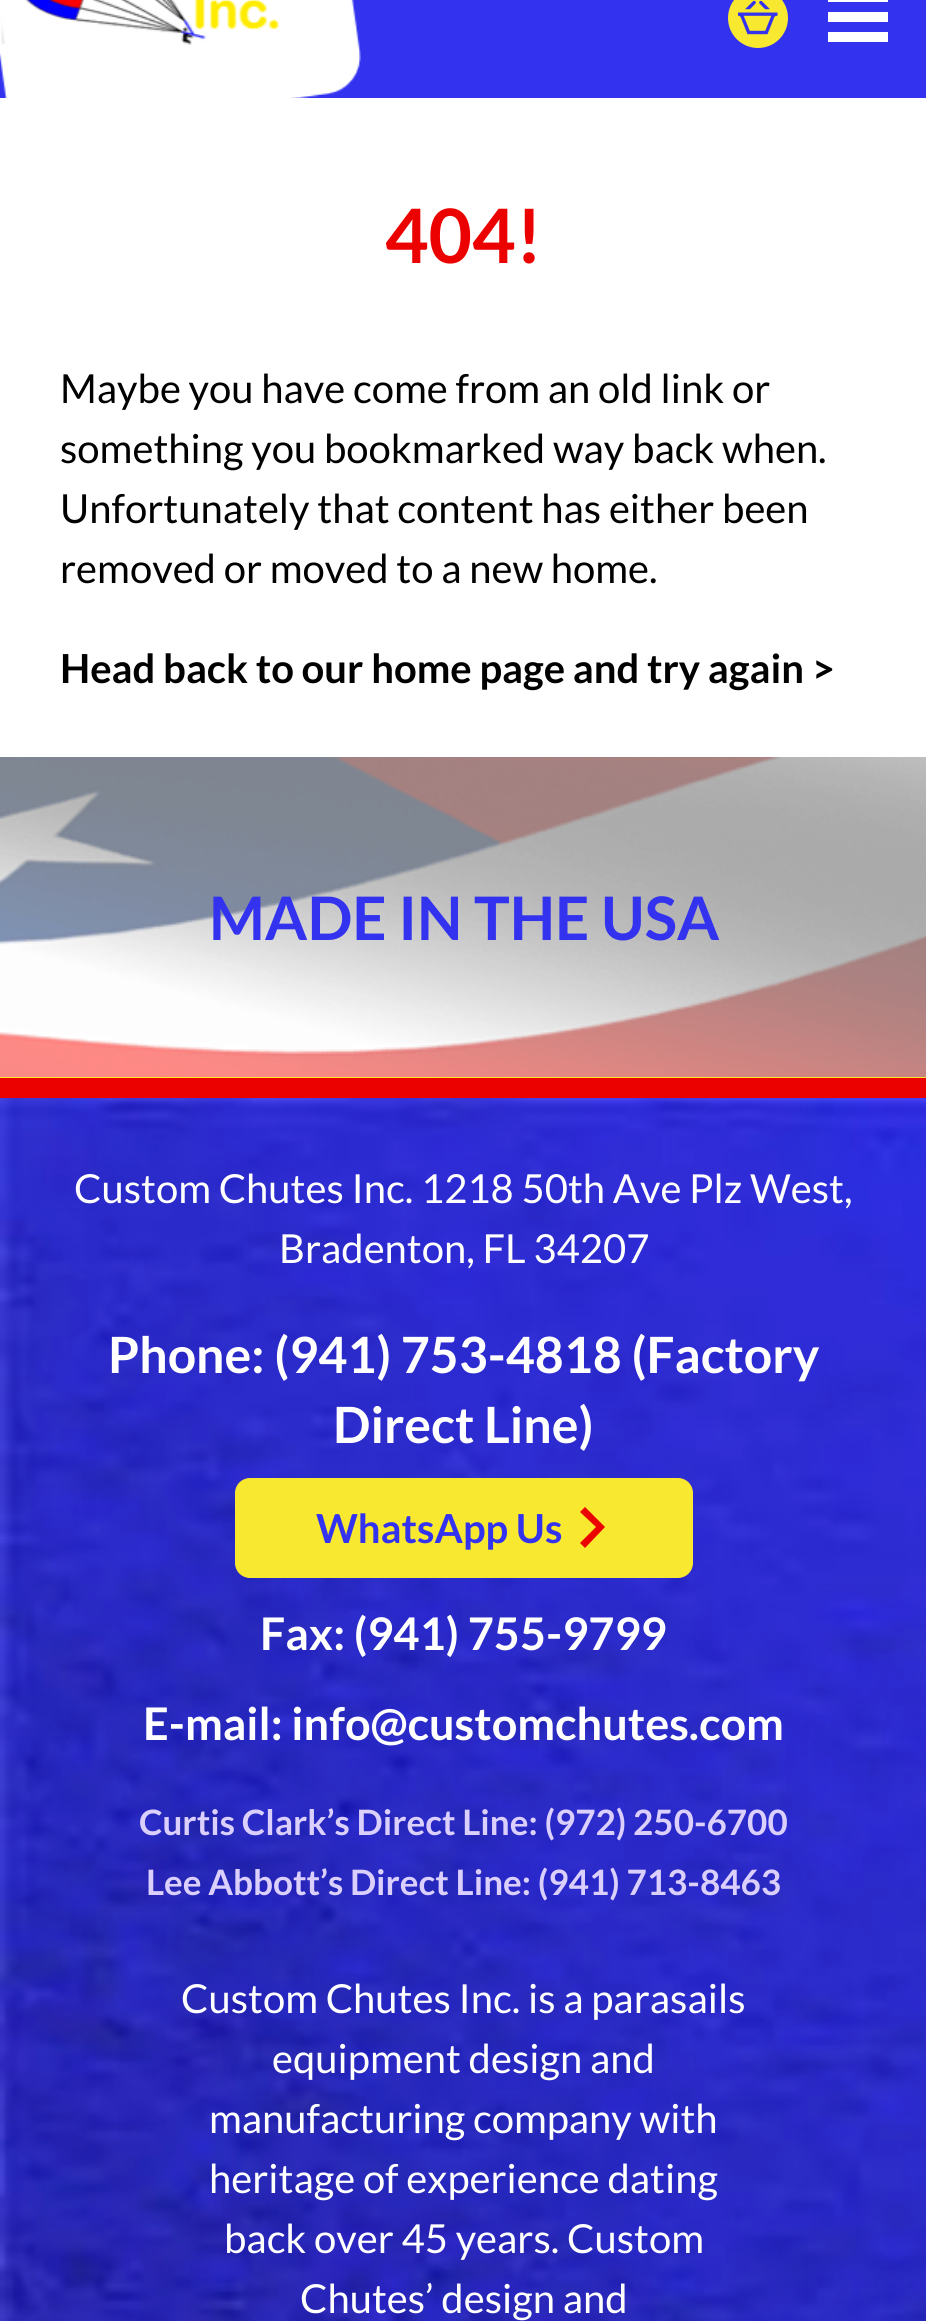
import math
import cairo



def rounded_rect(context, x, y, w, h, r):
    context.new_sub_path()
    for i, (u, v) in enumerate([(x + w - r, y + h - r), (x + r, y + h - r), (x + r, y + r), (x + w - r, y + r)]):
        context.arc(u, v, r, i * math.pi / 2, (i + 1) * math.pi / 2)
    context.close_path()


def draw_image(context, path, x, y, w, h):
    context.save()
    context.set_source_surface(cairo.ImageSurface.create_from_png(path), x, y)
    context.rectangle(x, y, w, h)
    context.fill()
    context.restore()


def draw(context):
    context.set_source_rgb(1, 1, 1)
    context.paint()
    context.set_source_rgb(51 / 255, 51 / 255, 239 / 255)
    context.rectangle(0, 0, 926, 98)
    context.fill()
    context.set_source_rgb(249 / 255, 232 / 255, 48 / 255)
    context.arc(758, 18, 30, 0, 2 * math.pi)
    context.fill()
    draw_image(context, "images/1.png", 738, 0, 40, 35)
    context.set_source_rgb(1, 1, 1)
    context.new_path()
    context.move_to(888, 2)
    context.line_to(828, 2)
    context.line_to(828, -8)
    context.line_to(888, -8)
    context.close_path()
    context.move_to(888, 12)
    context.line_to(828, 12)
    context.line_to(828, 22)
    context.line_to(888, 22)
    context.close_path()
    context.move_to(888, 32)
    context.line_to(828, 32)
    context.line_to(828, 42)
    context.line_to(888, 42)
    context.close_path()
    context.fill()
    draw_image(context, "images/2.png", 0, 0, 361, 98)
    context.set_source_rgb(249 / 255, 232 / 255, 48 / 255)
    context.rectangle(0, 1077, 926, 1)
    context.fill()
    draw_image(context, "images/3.png", 0, 757, 926, 320)
    draw_image(context, "images/4.png", 0, 1098, 926, 1223)
    context.set_source_rgb(235 / 255, 1 / 255, 0)
    context.rectangle(0, 1078, 926, 20)
    context.fill()
    context.set_source_rgb(249 / 255, 232 / 255, 48 / 255)
    rounded_rect(context, 235, 1478, 458, 100, 15)
    context.fill()
    context.set_source_rgb(235 / 255, 1 / 255, 0)
    context.new_path()
    context.move_to(585, 1548)
    context.line_to(580, 1543)
    context.line_to(596, 1527)
    context.line_to(580, 1512)
    context.line_to(585, 1507)
    context.line_to(605, 1527)
    context.close_path()
    context.fill()
    context.select_font_face("Lato", cairo.FontSlant.NORMAL, cairo.FontWeight.BOLD)
    context.set_font_size(75)
    context.move_to(385, 263)
    context.show_text("404!")
    context.select_font_face("Lato")
    context.set_font_size(40)
    context.set_source_rgb(0, 0, 0)
    context.move_to(60, 403)
    context.show_text("Maybe you have come from an old link or")
    context.move_to(60, 463)
    context.show_text("something you bookmarked way back when.")
    context.move_to(60, 523)
    context.show_text("Unfortunately that content has either been")
    context.move_to(60, 583)
    context.show_text("removed or moved to a new home.")
    context.select_font_face("Lato", cairo.FontSlant.NORMAL, cairo.FontWeight.BOLD)
    context.move_to(60, 683)
    context.show_text("Head back to our home page and try again >")
    context.set_font_size(60)
    context.set_source_rgb(51 / 255, 51 / 255, 239 / 255)
    context.move_to(209, 940)
    context.show_text("MADE IN THE USA")
    context.select_font_face("Lato")
    context.set_font_size(40)
    context.set_source_rgb(1, 1, 1)
    context.move_to(74, 1203)
    context.show_text("Custom Chutes Inc. 1218 50th Ave Plz West,")
    context.move_to(279, 1263)
    context.show_text("Bradenton, FL 34207")
    context.select_font_face("Lato", cairo.FontSlant.NORMAL, cairo.FontWeight.BOLD)
    context.set_font_size(50)
    context.move_to(108, 1373)
    context.show_text("Phone: (941) 753-4818 (Factory")
    context.move_to(333, 1443)
    context.show_text("Direct Line)")
    context.set_font_size(40)
    context.set_source_rgb(51 / 255, 51 / 255, 239 / 255)
    context.move_to(316, 1543)
    context.show_text("WhatsApp Us")
    context.set_font_size(45)
    context.set_source_rgb(1, 1, 1)
    context.move_to(260, 1650)
    context.show_text("Fax: (941) 755-9799")
    context.move_to(143, 1740)
    context.show_text("E-mail: info@customchutes.com")
    context.set_font_size(35)
    context.set_source_rgb(219 / 255, 208 / 255, 253 / 255)
    context.move_to(139, 1835)
    context.show_text("Curtis Clark’s Direct Line: (972) 250-6700")
    context.move_to(146, 1895)
    context.show_text("Lee Abbott’s Direct Line: (941) 713-8463")
    context.select_font_face("Lato")
    context.set_font_size(40)
    context.set_source_rgb(1, 1, 1)
    context.move_to(181, 2013)
    context.show_text("Custom Chutes Inc. is a parasails")
    context.move_to(272, 2073)
    context.show_text("equipment design and")
    context.move_to(209, 2133)
    context.show_text("manufacturing company with")
    context.move_to(209, 2193)
    context.show_text("heritage of experience dating")
    context.move_to(224, 2253)
    context.show_text("back over 45 years. Custom")
    context.move_to(300, 2313)
    context.show_text("Chutes’ design and")


surface = cairo.ImageSurface(cairo.Format.RGB24, 926, 2321)
context = cairo.Context(surface)
options = cairo.FontOptions()
options.set_hint_metrics(cairo.HintMetrics.OFF)
options.set_hint_style(cairo.HintStyle.NONE)
context.set_font_options(options)
context.set_miter_limit(4)
draw(context)
surface.write_to_png("out.png")
